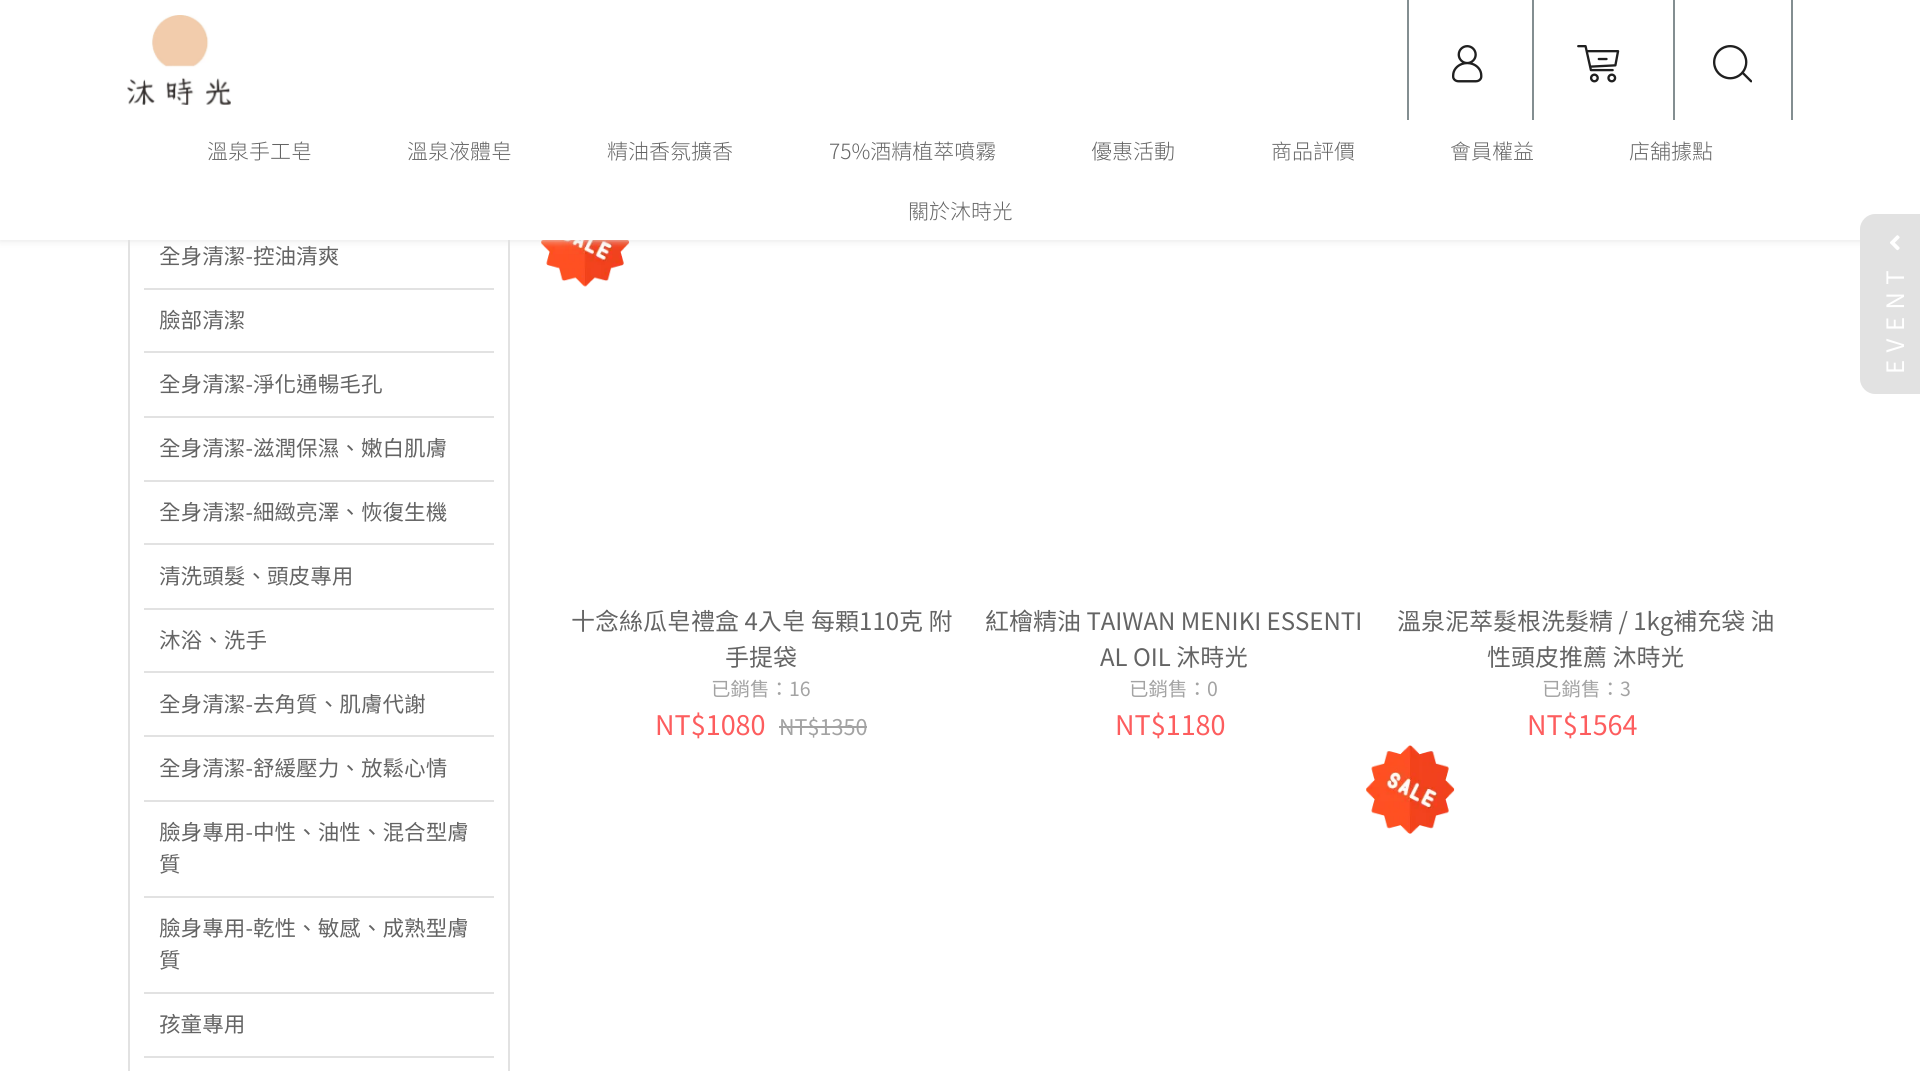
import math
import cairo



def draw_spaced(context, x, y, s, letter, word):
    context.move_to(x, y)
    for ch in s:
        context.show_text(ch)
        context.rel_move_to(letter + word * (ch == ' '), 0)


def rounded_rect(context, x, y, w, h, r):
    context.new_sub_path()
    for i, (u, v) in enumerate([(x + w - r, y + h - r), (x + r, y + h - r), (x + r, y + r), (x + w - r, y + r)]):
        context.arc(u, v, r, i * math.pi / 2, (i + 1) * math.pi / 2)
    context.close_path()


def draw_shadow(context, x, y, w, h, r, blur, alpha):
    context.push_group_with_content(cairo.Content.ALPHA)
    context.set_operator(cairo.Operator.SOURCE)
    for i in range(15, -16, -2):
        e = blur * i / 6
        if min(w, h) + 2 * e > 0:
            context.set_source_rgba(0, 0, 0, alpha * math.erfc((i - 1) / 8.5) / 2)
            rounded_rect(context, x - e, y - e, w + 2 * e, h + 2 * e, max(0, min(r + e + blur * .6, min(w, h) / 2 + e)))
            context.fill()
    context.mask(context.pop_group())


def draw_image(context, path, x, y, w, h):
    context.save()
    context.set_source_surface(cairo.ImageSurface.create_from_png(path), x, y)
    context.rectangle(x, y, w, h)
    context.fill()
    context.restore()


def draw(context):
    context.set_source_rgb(1, 1, 1)
    context.paint()
    context.rectangle(129, 129, 380, 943)
    context.set_source_rgb(226 / 255, 226 / 255, 226 / 255)
    context.stroke()
    draw_image(context, "images/5.png", 541, 240, 89, 47)
    context.set_source_rgb(226 / 255, 226 / 255, 226 / 255)
    draw_shadow(context, 0, 0, 1920, 240, 0, 4, 1)
    context.set_source_rgb(1, 1, 1)
    context.rectangle(0, 0, 1920, 240)
    context.fill()
    draw_image(context, "images/1.png", 127, 15, 104, 90)
    context.set_source_rgb(131 / 255, 142 / 255, 145 / 255)
    context.rectangle(1407, 0, 2, 120)
    context.fill()
    draw_image(context, "images/2.png", 1452, 45, 31, 38)
    context.rectangle(1532, 0, 2, 120)
    context.fill()
    draw_image(context, "images/3.png", 1577, 45, 43, 38)
    context.rectangle(1791, 0, 2, 120)
    context.fill()
    context.rectangle(1673, 0, 2, 120)
    context.fill()
    draw_image(context, "images/4.png", 1713, 45, 39, 38)
    context.set_source_rgb(226 / 255, 226 / 255, 226 / 255)
    context.rectangle(144, 288, 350, 2)
    context.fill()
    context.rectangle(144, 351, 350, 2)
    context.fill()
    context.rectangle(144, 416, 350, 2)
    context.fill()
    context.rectangle(144, 480, 350, 2)
    context.fill()
    context.rectangle(144, 543, 350, 2)
    context.fill()
    context.rectangle(144, 608, 350, 2)
    context.fill()
    context.rectangle(144, 671, 350, 2)
    context.fill()
    context.rectangle(144, 735, 350, 2)
    context.fill()
    context.rectangle(144, 800, 350, 2)
    context.fill()
    context.rectangle(144, 896, 350, 2)
    context.fill()
    context.rectangle(144, 992, 350, 2)
    context.fill()
    context.rectangle(144, 1056, 350, 2)
    context.fill()
    context.set_source_rgb(163 / 255, 163 / 255, 163 / 255)
    context.rectangle(779, 726, 88, 2)
    context.fill()
    draw_image(context, "images/6.png", 1366, 745, 89, 89)
    context.set_source_rgb(226 / 255, 226 / 255, 226 / 255)
    context.new_path()
    context.move_to(1860, 379)
    context.line_to(1860, 229)
    context.curve_to(1860, 221, 1867, 214, 1875, 214)
    context.line_to(1920, 214)
    context.line_to(1920, 394)
    context.line_to(1875, 394)
    context.curve_to(1867, 394, 1860, 387, 1860, 379)
    context.close_path()
    context.fill()
    draw_image(context, "images/7.png", 1890, 235, 10, 16)
    context.select_font_face("Noto Sans TC Light")
    context.set_font_size(21)
    context.set_source_rgb(100 / 255, 100 / 255, 100 / 255)
    context.move_to(207, 159)
    context.show_text("溫泉手工皂")
    context.move_to(407, 159)
    context.show_text("溫泉液體皂")
    context.move_to(607, 159)
    context.show_text("精油香氛擴香")
    context.move_to(829, 159)
    context.show_text("75%酒精植萃噴霧")
    context.move_to(1091, 159)
    context.show_text("優惠活動")
    context.move_to(1271, 159)
    context.show_text("商品評價")
    context.move_to(1450, 159)
    context.show_text("會員權益")
    context.move_to(1629, 159)
    context.show_text("店舖據點")
    context.move_to(908, 219)
    context.show_text("關於沐時光")
    context.select_font_face("Noto Sans TC")
    context.set_font_size(21.6)
    context.move_to(159, 264)
    context.show_text("全身清潔-控油清爽")
    context.move_to(159, 328)
    context.show_text("臉部清潔")
    context.move_to(159, 392)
    context.show_text("全身清潔-淨化通暢毛孔")
    context.move_to(159, 456)
    context.show_text("全身清潔-滋潤保濕、嫩白肌膚")
    context.move_to(159, 520)
    context.show_text("全身清潔-細緻亮澤、恢復生機")
    context.move_to(159, 584)
    context.show_text("清洗頭髮、頭皮專用")
    context.move_to(159, 648)
    context.show_text("沐浴、洗手")
    context.move_to(159, 712)
    context.show_text("全身清潔-去角質、肌膚代謝")
    context.move_to(159, 776)
    context.show_text("全身清潔-舒緩壓力、放鬆心情")
    context.move_to(159, 840)
    context.show_text("臉身專用-中性、油性、混合型膚")
    context.move_to(159, 872)
    context.show_text("質")
    context.move_to(159, 936)
    context.show_text("臉身專用-乾性、敏感、成熟型膚")
    context.move_to(159, 968)
    context.show_text("質")
    context.move_to(159, 1032)
    context.show_text("孩童專用")
    context.set_font_size(24)
    context.move_to(571, 630)
    context.show_text("十念絲瓜皂禮盒 4入皂 每顆110克 附")
    context.move_to(725, 666)
    context.show_text("手提袋")
    context.set_font_size(19.5)
    context.set_source_rgb(163 / 255, 163 / 255, 163 / 255)
    context.move_to(711, 696)
    context.show_text("已銷售：16")
    context.set_font_size(27)
    context.set_source_rgb(253 / 255, 93 / 255, 94 / 255)
    context.move_to(655, 735)
    context.show_text("NT$1080")
    context.set_font_size(21.6)
    context.set_source_rgb(163 / 255, 163 / 255, 163 / 255)
    context.move_to(779, 735)
    context.show_text("NT$1350")
    context.set_font_size(24)
    context.set_source_rgb(100 / 255, 100 / 255, 100 / 255)
    context.move_to(985, 630)
    context.show_text("紅檜精油 TAIWAN MENIKI ESSENTI")
    context.move_to(1100, 666)
    context.show_text("AL OIL 沐時光")
    context.set_font_size(19.5)
    context.set_source_rgb(163 / 255, 163 / 255, 163 / 255)
    context.move_to(1129, 696)
    context.show_text("已銷售：0")
    context.set_font_size(27)
    context.set_source_rgb(253 / 255, 93 / 255, 94 / 255)
    context.move_to(1115, 735)
    context.show_text("NT$1180")
    context.set_font_size(24)
    context.set_source_rgb(100 / 255, 100 / 255, 100 / 255)
    context.move_to(1397, 630)
    context.show_text("溫泉泥萃髮根洗髮精 / 1kg補充袋 油")
    context.move_to(1487, 666)
    context.show_text("性頭皮推薦 沐時光")
    context.set_font_size(19.5)
    context.set_source_rgb(163 / 255, 163 / 255, 163 / 255)
    context.move_to(1542, 696)
    context.show_text("已銷售：3")
    context.set_font_size(27)
    context.set_source_rgb(253 / 255, 93 / 255, 94 / 255)
    context.move_to(1527, 735)
    context.show_text("NT$1564")
    context.set_font_size(24)
    context.set_source_rgb(1, 1, 1)
    context.save()
    context.translate(1904, 374)
    context.rotate(-90 * math.pi / 180)
    draw_spaced(context, 0, 0, "EVENT", 7.5, 0)
    context.restore()


surface = cairo.ImageSurface(cairo.Format.RGB24, 1920, 1071)
context = cairo.Context(surface)
options = cairo.FontOptions()
options.set_hint_metrics(cairo.HintMetrics.OFF)
options.set_hint_style(cairo.HintStyle.NONE)
context.set_font_options(options)
context.set_miter_limit(4)
draw(context)
surface.write_to_png("out.png")
